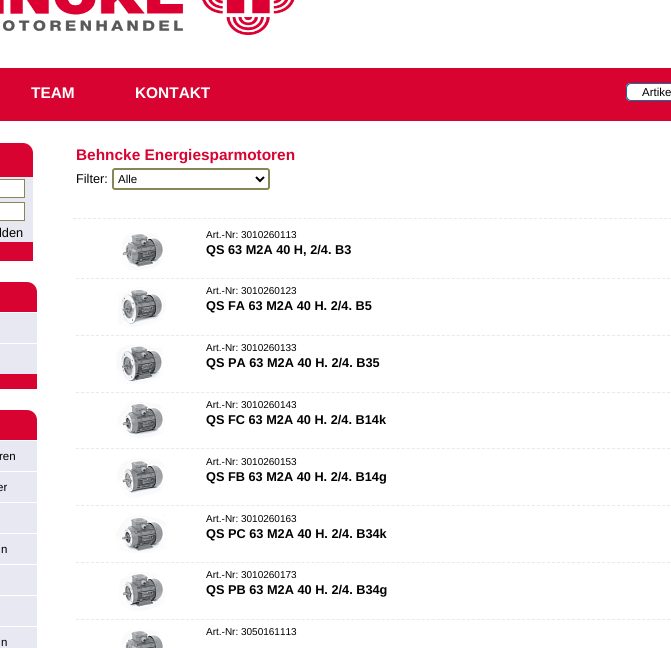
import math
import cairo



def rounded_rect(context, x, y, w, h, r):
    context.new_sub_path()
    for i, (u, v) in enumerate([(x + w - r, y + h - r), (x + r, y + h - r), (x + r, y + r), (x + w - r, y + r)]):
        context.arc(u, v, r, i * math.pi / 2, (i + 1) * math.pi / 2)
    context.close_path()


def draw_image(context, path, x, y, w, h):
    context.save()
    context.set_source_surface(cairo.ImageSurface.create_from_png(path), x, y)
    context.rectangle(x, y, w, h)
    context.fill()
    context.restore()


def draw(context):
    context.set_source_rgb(1, 1, 1)
    context.paint()
    draw_image(context, "images/1.png", 0, 0, 295, 35)
    context.set_source_rgb(216 / 255, 3 / 255, 49 / 255)
    context.rectangle(0, 68, 671, 53)
    context.fill()
    context.set_source_rgb(1, 1, 1)
    context.new_path()
    context.move_to(631, 83)
    context.line_to(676, 83)
    context.line_to(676, 101)
    context.line_to(631, 101)
    context.curve_to(628, 101, 626, 99, 626, 96)
    context.line_to(626, 88)
    context.curve_to(626, 85, 628, 83, 631, 83)
    context.close_path()
    context.fill()
    context.set_source_rgb(0, 118 / 255, 163 / 255)
    context.set_fill_rule(cairo.FillRule.EVEN_ODD)
    context.new_path()
    context.move_to(631, 83)
    context.line_to(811, 83)
    context.line_to(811, 101)
    context.line_to(631, 101)
    context.curve_to(628, 101, 626, 99, 626, 96)
    context.line_to(626, 88)
    context.curve_to(626, 85, 628, 83, 631, 83)
    context.close_path()
    context.move_to(631, 84)
    context.line_to(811, 84)
    context.line_to(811, 100)
    context.line_to(631, 100)
    context.curve_to(629, 100, 627, 98, 627, 96)
    context.line_to(627, 88)
    context.curve_to(627, 86, 629, 84, 631, 84)
    context.close_path()
    context.fill()
    context.set_source_rgb(216 / 255, 3 / 255, 49 / 255)
    context.new_path()
    context.move_to(0, 143)
    context.line_to(23, 143)
    context.curve_to(28.5, 143, 33, 147.5, 33, 153)
    context.line_to(33, 177)
    context.line_to(-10, 177)
    context.line_to(-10, 153)
    context.curve_to(-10, 147.5, -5.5, 143, 0, 143)
    context.close_path()
    context.fill()
    context.set_source_rgb(231 / 255, 232 / 255, 241 / 255)
    context.rectangle(0, 177, 33, 65)
    context.fill()
    context.set_source_rgb(1, 1, 1)
    context.rectangle(-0.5, 179.5, 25, 18)
    context.fill_preserve()
    context.set_source_rgb(134 / 255, 134 / 255, 86 / 255)
    context.set_line_width(1)
    context.stroke()
    context.set_source_rgb(1, 1, 1)
    context.rectangle(-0.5, 202.5, 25, 18)
    context.fill_preserve()
    context.set_source_rgb(134 / 255, 134 / 255, 86 / 255)
    context.stroke()
    context.set_source_rgb(216 / 255, 3 / 255, 49 / 255)
    context.rectangle(0, 242, 33, 19)
    context.fill()
    context.new_path()
    context.move_to(0, 282)
    context.line_to(27, 282)
    context.curve_to(32.5, 282, 37, 286.5, 37, 292)
    context.line_to(37, 312)
    context.line_to(-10, 312)
    context.line_to(-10, 292)
    context.curve_to(-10, 286.5, -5.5, 282, 0, 282)
    context.close_path()
    context.fill()
    context.set_source_rgb(231 / 255, 232 / 255, 241 / 255)
    context.rectangle(0, 313, 37, 30)
    context.fill()
    context.rectangle(0, 344, 37, 30)
    context.fill()
    context.set_source_rgb(216 / 255, 3 / 255, 49 / 255)
    context.rectangle(0, 374, 37, 15)
    context.fill()
    context.new_path()
    context.move_to(0, 410)
    context.line_to(27, 410)
    context.curve_to(32.5, 410, 37, 414.5, 37, 420)
    context.line_to(37, 440)
    context.line_to(-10, 440)
    context.line_to(-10, 420)
    context.curve_to(-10, 414.5, -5.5, 410, 0, 410)
    context.close_path()
    context.fill()
    context.set_source_rgb(231 / 255, 232 / 255, 241 / 255)
    context.rectangle(0, 441, 37, 30)
    context.fill()
    context.rectangle(0, 472, 37, 30)
    context.fill()
    context.rectangle(0, 503, 37, 30)
    context.fill()
    context.rectangle(0, 534, 37, 30)
    context.fill()
    context.rectangle(0, 565, 37, 30)
    context.fill()
    context.rectangle(0, 596, 37, 30)
    context.fill()
    context.rectangle(0, 627, 37, 21)
    context.fill()
    rounded_rect(context, 113, 169, 156, 20, 2)
    context.set_source_rgb(134 / 255, 134 / 255, 86 / 255)
    context.set_line_width(2)
    context.stroke()
    context.new_path()
    context.move_to(256, 177)
    context.line_to(260, 181)
    context.line_to(264, 177)
    context.set_source_rgb(0, 0, 0)
    context.stroke()
    context.new_path()
    context.move_to(73, 218.5)
    context.line_to(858, 218.5)
    context.set_source_rgb(231 / 255, 232 / 255, 241 / 255)
    context.set_line_width(1)
    context.set_dash([3, 2.01])
    context.stroke()
    draw_image(context, "images/2.png", 122, 233, 41, 37)
    context.new_path()
    context.move_to(76, 278.5)
    context.line_to(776, 278.5)
    context.stroke()
    draw_image(context, "images/3.png", 118, 287, 48, 40)
    context.new_path()
    context.move_to(76, 335.5)
    context.line_to(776, 335.5)
    context.stroke()
    draw_image(context, "images/4.png", 116, 345, 47, 39)
    context.new_path()
    context.move_to(76, 392.5)
    context.line_to(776, 392.5)
    context.stroke()
    draw_image(context, "images/5.png", 117, 402, 48, 36)
    context.new_path()
    context.move_to(76, 448.5)
    context.line_to(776, 448.5)
    context.stroke()
    draw_image(context, "images/6.png", 117, 458, 47, 40)
    context.new_path()
    context.move_to(76, 505.5)
    context.line_to(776, 505.5)
    context.stroke()
    draw_image(context, "images/7.png", 116, 514, 50, 39)
    context.new_path()
    context.move_to(76, 562.5)
    context.line_to(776, 562.5)
    context.stroke()
    draw_image(context, "images/8.png", 119, 572, 46, 39)
    context.new_path()
    context.move_to(76, 619.5)
    context.line_to(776, 619.5)
    context.stroke()
    draw_image(context, "images/9.png", 122, 630, 41, 18)
    context.select_font_face("Liberation Sans", cairo.FontSlant.NORMAL, cairo.FontWeight.BOLD)
    context.set_font_size(15.4)
    context.set_source_rgb(1, 1, 1)
    context.move_to(31, 98)
    context.show_text("TEAM")
    context.move_to(135, 98)
    context.show_text("KONTAKT")
    context.select_font_face("Liberation Sans")
    context.set_font_size(11.5)
    context.set_source_rgb(0, 0, 0)
    context.move_to(642, 96)
    context.show_text("Artike")
    context.set_font_size(12.75)
    context.move_to(-1, 237)
    context.show_text("lden")
    context.set_font_size(11.5)
    context.move_to(-1, 460)
    context.show_text("ren")
    context.move_to(-3, 491)
    context.show_text("er")
    context.move_to(1, 553)
    context.show_text("n")
    context.move_to(1, 646)
    context.show_text("n")
    context.select_font_face("Liberation Sans", cairo.FontSlant.NORMAL, cairo.FontWeight.BOLD)
    context.set_font_size(15.4)
    context.set_source_rgb(216 / 255, 3 / 255, 49 / 255)
    context.move_to(76, 160)
    context.show_text("Behncke Energiesparmotoren")
    context.select_font_face("Liberation Sans")
    context.set_font_size(12.75)
    context.set_source_rgb(0, 0, 0)
    context.move_to(76, 183)
    context.show_text("Filter:")
    context.set_font_size(11.5)
    context.move_to(118, 183)
    context.show_text("Alle")
    context.set_font_size(10)
    context.move_to(206, 238)
    context.show_text("Art.-Nr: 3010260113")
    context.select_font_face("Liberation Sans", cairo.FontSlant.NORMAL, cairo.FontWeight.BOLD)
    context.set_font_size(12.75)
    context.move_to(206, 254)
    context.show_text("QS 63 M2A 40 H, 2/4. B3")
    context.select_font_face("Liberation Sans")
    context.set_font_size(10)
    context.move_to(206, 294)
    context.show_text("Art.-Nr: 3010260123")
    context.select_font_face("Liberation Sans", cairo.FontSlant.NORMAL, cairo.FontWeight.BOLD)
    context.set_font_size(12.75)
    context.move_to(206, 310)
    context.show_text("QS FA 63 M2A 40 H. 2/4. B5")
    context.select_font_face("Liberation Sans")
    context.set_font_size(10)
    context.move_to(206, 351)
    context.show_text("Art.-Nr: 3010260133")
    context.select_font_face("Liberation Sans", cairo.FontSlant.NORMAL, cairo.FontWeight.BOLD)
    context.set_font_size(12.75)
    context.move_to(206, 367)
    context.show_text("QS PA 63 M2A 40 H. 2/4. B35")
    context.select_font_face("Liberation Sans")
    context.set_font_size(10)
    context.move_to(206, 408)
    context.show_text("Art.-Nr: 3010260143")
    context.select_font_face("Liberation Sans", cairo.FontSlant.NORMAL, cairo.FontWeight.BOLD)
    context.set_font_size(12.75)
    context.move_to(206, 424)
    context.show_text("QS FC 63 M2A 40 H. 2/4. B14k")
    context.select_font_face("Liberation Sans")
    context.set_font_size(10)
    context.move_to(206, 465)
    context.show_text("Art.-Nr: 3010260153")
    context.select_font_face("Liberation Sans", cairo.FontSlant.NORMAL, cairo.FontWeight.BOLD)
    context.set_font_size(12.75)
    context.move_to(206, 481)
    context.show_text("QS FB 63 M2A 40 H. 2/4. B14g")
    context.select_font_face("Liberation Sans")
    context.set_font_size(10)
    context.move_to(206, 522)
    context.show_text("Art.-Nr: 3010260163")
    context.select_font_face("Liberation Sans", cairo.FontSlant.NORMAL, cairo.FontWeight.BOLD)
    context.set_font_size(12.75)
    context.move_to(206, 538)
    context.show_text("QS PC 63 M2A 40 H. 2/4. B34k")
    context.select_font_face("Liberation Sans")
    context.set_font_size(10)
    context.move_to(206, 578)
    context.show_text("Art.-Nr: 3010260173")
    context.select_font_face("Liberation Sans", cairo.FontSlant.NORMAL, cairo.FontWeight.BOLD)
    context.set_font_size(12.75)
    context.move_to(206, 594)
    context.show_text("QS PB 63 M2A 40 H. 2/4. B34g")
    context.select_font_face("Liberation Sans")
    context.set_font_size(10)
    context.move_to(206, 635)
    context.show_text("Art.-Nr: 3050161113")


surface = cairo.ImageSurface(cairo.Format.RGB24, 671, 648)
context = cairo.Context(surface)
options = cairo.FontOptions()
options.set_hint_metrics(cairo.HintMetrics.OFF)
options.set_hint_style(cairo.HintStyle.NONE)
context.set_font_options(options)
context.set_miter_limit(4)
draw(context)
surface.write_to_png("out.png")
